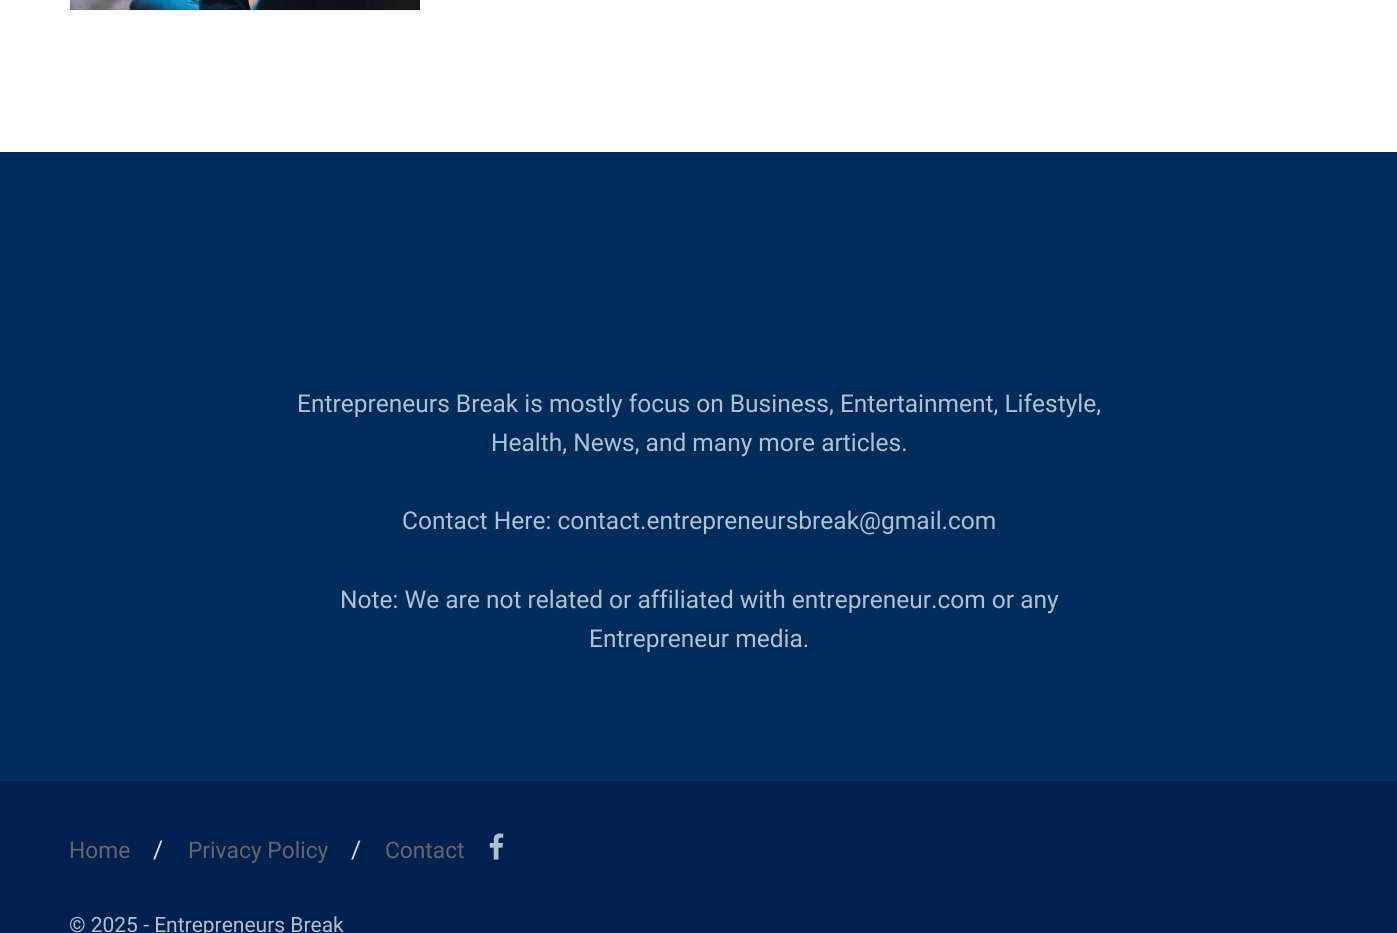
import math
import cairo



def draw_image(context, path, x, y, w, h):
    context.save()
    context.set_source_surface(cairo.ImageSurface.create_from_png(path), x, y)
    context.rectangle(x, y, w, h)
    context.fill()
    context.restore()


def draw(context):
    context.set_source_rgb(1, 1, 1)
    context.paint()
    context.set_source_rgb(247 / 255, 247 / 255, 247 / 255)
    context.rectangle(70, 10, 350, 1)
    context.fill()
    draw_image(context, "images/1.png", 70, 0, 350, 10)
    context.set_source_rgb(0, 44 / 255, 91 / 255)
    context.rectangle(0, 152, 1397, 629)
    context.fill()
    context.set_source_rgb(0, 33 / 255, 79 / 255)
    context.rectangle(0, 781, 1397, 152)
    context.fill()
    draw_image(context, "images/2.png", 489, 833, 15, 27)
    context.select_font_face("Roboto")
    context.set_font_size(24.5)
    context.set_source_rgb(178 / 255, 192 / 255, 205 / 255)
    context.move_to(297, 412)
    context.show_text("Entrepreneurs Break is mostly focus on Business, Entertainment, Lifestyle,")
    context.move_to(491, 451)
    context.show_text("Health, News, and many more articles.")
    context.move_to(402, 529)
    context.show_text("Contact Here: contact.entrepreneursbreak@gmail.com")
    context.move_to(340, 608)
    context.show_text("Note: We are not related or affiliated with entrepreneur.com or any")
    context.move_to(589, 647)
    context.show_text("Entrepreneur media.")
    context.set_font_size(22.75)
    context.set_source_rgb(102 / 255, 102 / 255, 102 / 255)
    context.move_to(69, 858)
    context.show_text("Home")
    context.set_font_size(24.5)
    context.set_source_rgb(224 / 255, 224 / 255, 224 / 255)
    context.move_to(153, 858)
    context.show_text("/")
    context.set_font_size(22.75)
    context.set_source_rgb(102 / 255, 102 / 255, 102 / 255)
    context.move_to(188, 858)
    context.show_text("Privacy Policy")
    context.set_font_size(24.5)
    context.set_source_rgb(224 / 255, 224 / 255, 224 / 255)
    context.move_to(351, 858)
    context.show_text("/")
    context.set_font_size(22.75)
    context.set_source_rgb(102 / 255, 102 / 255, 102 / 255)
    context.move_to(385, 858)
    context.show_text("Contact")
    context.set_font_size(21)
    context.set_source_rgb(178 / 255, 192 / 255, 205 / 255)
    context.move_to(69, 932)
    context.show_text("© 2025 - Entrepreneurs Break")


surface = cairo.ImageSurface(cairo.Format.RGB24, 1397, 933)
context = cairo.Context(surface)
options = cairo.FontOptions()
options.set_hint_metrics(cairo.HintMetrics.OFF)
options.set_hint_style(cairo.HintStyle.NONE)
context.set_font_options(options)
context.set_miter_limit(4)
draw(context)
surface.write_to_png("out.png")
